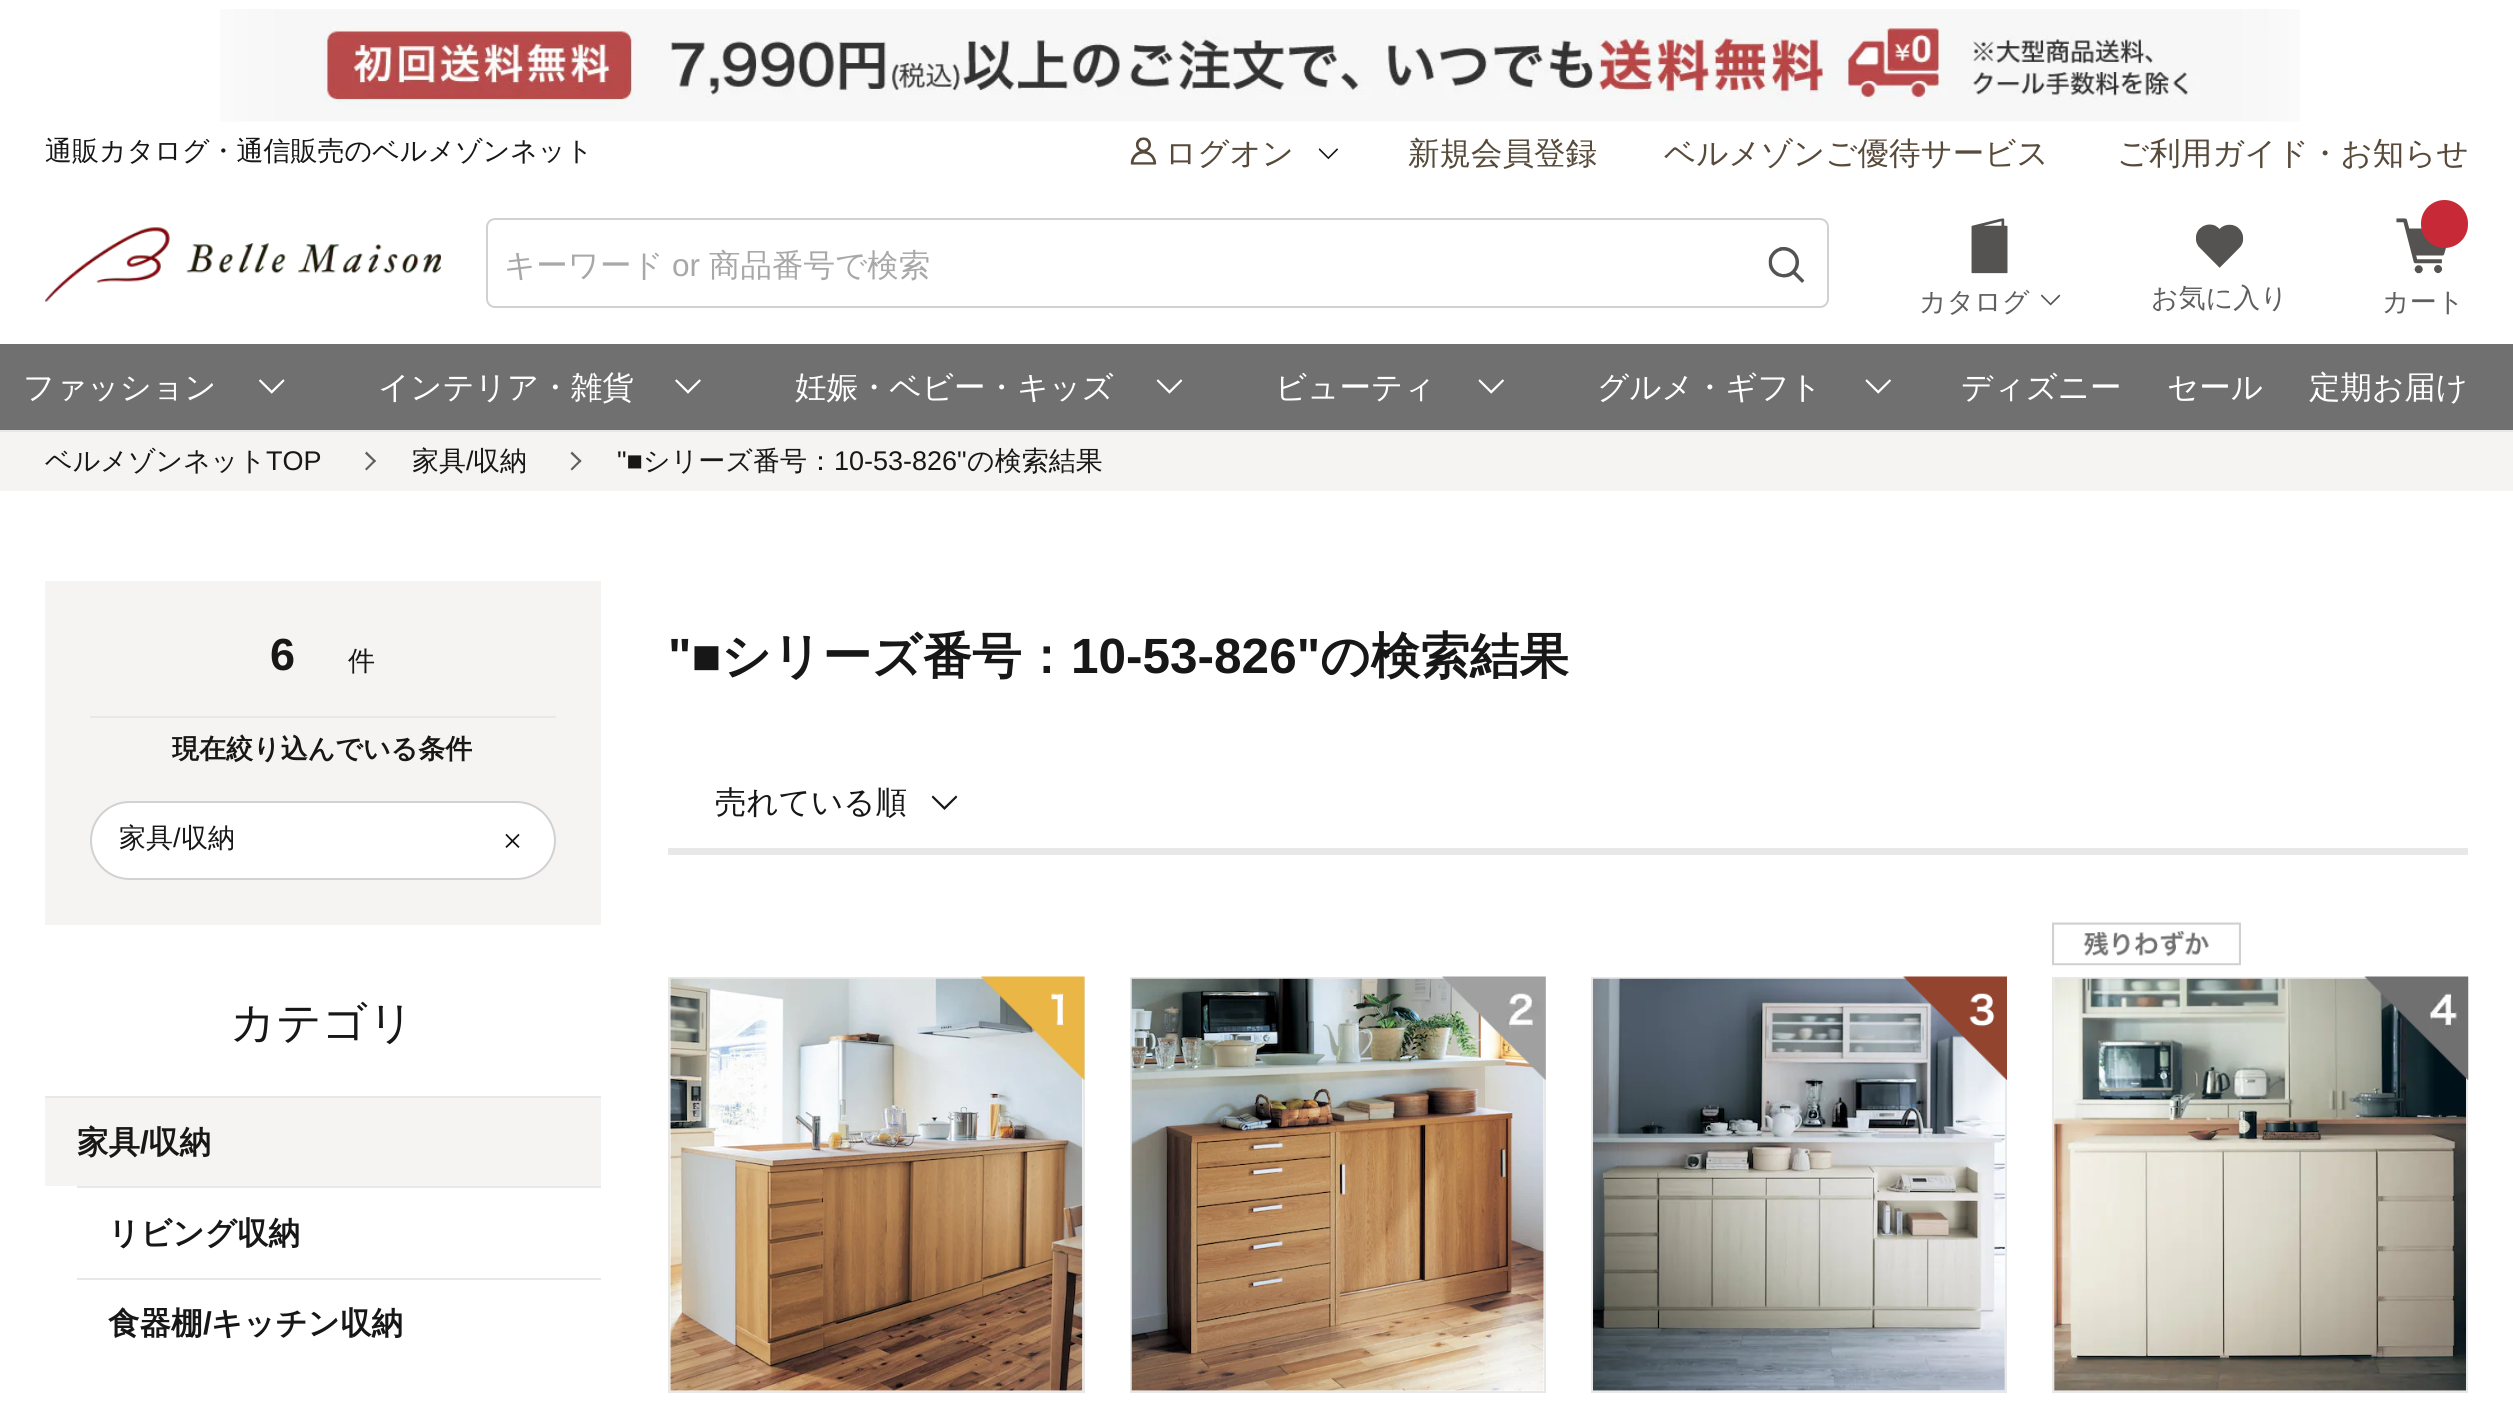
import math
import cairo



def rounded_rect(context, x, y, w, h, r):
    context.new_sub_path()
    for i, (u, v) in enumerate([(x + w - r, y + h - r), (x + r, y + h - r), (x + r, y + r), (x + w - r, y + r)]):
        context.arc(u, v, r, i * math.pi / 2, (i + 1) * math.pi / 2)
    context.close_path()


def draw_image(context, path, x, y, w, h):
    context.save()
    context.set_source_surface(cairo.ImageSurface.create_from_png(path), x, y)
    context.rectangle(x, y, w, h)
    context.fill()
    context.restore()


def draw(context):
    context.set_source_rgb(1, 1, 1)
    context.paint()
    context.set_source_rgb(230 / 255, 230 / 255, 230 / 255)
    context.rectangle(0, 430, 2513, 2)
    context.fill()
    draw_image(context, "images/1.png", 220, 9, 2080, 113)
    draw_image(context, "images/2.png", 1130, 137, 27, 28)
    draw_image(context, "images/3.png", 1318, 148, 20, 12)
    draw_image(context, "images/4.png", 45, 227, 396, 75)
    rounded_rect(context, 487, 219, 1341, 88, 8)
    context.set_source_rgb(210 / 255, 209 / 255, 209 / 255)
    context.stroke()
    draw_image(context, "images/5.png", 1768, 247, 37, 36)
    draw_image(context, "images/6.png", 1971, 218, 37, 56)
    draw_image(context, "images/7.png", 2041, 294, 20, 12)
    draw_image(context, "images/8.png", 2196, 224, 48, 44)
    draw_image(context, "images/9.png", 2396, 218, 51, 56)
    context.set_source_rgb(199 / 255, 41 / 255, 55 / 255)
    rounded_rect(context, 2421, 200, 47, 48, 23.5)
    context.fill()
    context.set_source_rgb(112 / 255, 112 / 255, 112 / 255)
    context.rectangle(0, 344, 2513, 86)
    context.fill()
    draw_image(context, "images/10.png", 259, 379, 26, 15)
    draw_image(context, "images/11.png", 675, 379, 26, 15)
    draw_image(context, "images/12.png", 1156, 379, 27, 15)
    draw_image(context, "images/13.png", 1478, 379, 26, 15)
    draw_image(context, "images/13.png", 1865, 379, 26, 15)
    context.set_source_rgb(246 / 255, 244 / 255, 243 / 255)
    context.rectangle(0, 432, 2513, 59)
    context.fill()
    context.set_source_rgb(97 / 255, 94 / 255, 94 / 255)
    context.new_path()
    context.move_to(365, 453.5)
    context.line_to(366.5, 451.5)
    context.line_to(376, 461)
    context.line_to(374.5, 462.5)
    context.close_path()
    context.fill()
    context.new_path()
    context.move_to(365, 469)
    context.line_to(374.5, 459.5)
    context.line_to(376, 461)
    context.line_to(366.5, 470.5)
    context.close_path()
    context.fill()
    context.new_path()
    context.move_to(570.5, 453.5)
    context.line_to(572, 451.5)
    context.line_to(581.5, 461)
    context.line_to(580, 462.5)
    context.close_path()
    context.fill()
    context.new_path()
    context.move_to(570.5, 469)
    context.line_to(580, 459.5)
    context.line_to(581.5, 461)
    context.line_to(572, 470.5)
    context.close_path()
    context.fill()
    context.set_source_rgb(246 / 255, 244 / 255, 243 / 255)
    context.rectangle(45, 581, 556, 344)
    context.fill()
    context.set_source_rgb(232 / 255, 232 / 255, 232 / 255)
    context.rectangle(90, 716, 466, 2)
    context.fill()
    context.set_source_rgb(1, 1, 1)
    rounded_rect(context, 91, 802, 464, 77, 38.5)
    context.fill_preserve()
    context.set_source_rgb(210 / 255, 209 / 255, 209 / 255)
    context.stroke()
    draw_image(context, "images/14.png", 505, 833, 15, 15)
    context.set_source_rgb(232 / 255, 232 / 255, 232 / 255)
    context.rectangle(45, 1096, 556, 2)
    context.fill()
    context.set_source_rgb(246 / 255, 244 / 255, 243 / 255)
    context.rectangle(45, 1098, 556, 88)
    context.fill()
    context.set_source_rgb(232 / 255, 232 / 255, 232 / 255)
    context.rectangle(77, 1186, 524, 2)
    context.fill()
    context.rectangle(77, 1278, 524, 2)
    context.fill()
    draw_image(context, "images/15.png", 931, 795, 27, 15)
    context.rectangle(668, 848, 1800, 7)
    context.fill()
    context.rectangle(669, 978, 415, 414)
    context.stroke()
    draw_image(context, "images/17.png", 670, 978, 413, 413)
    draw_image(context, "images/16.png", 981, 976, 104, 104)
    context.rectangle(1131, 978, 414, 414)
    context.stroke()
    draw_image(context, "images/19.png", 1131, 978, 413, 413)
    draw_image(context, "images/18.png", 1442, 976, 104, 104)
    context.rectangle(1592, 978, 414, 414)
    context.stroke()
    draw_image(context, "images/21.png", 1593, 978, 412, 413)
    draw_image(context, "images/20.png", 1903, 976, 104, 104)
    draw_image(context, "images/22.png", 2052, 922, 189, 44)
    context.rectangle(2053, 978, 414, 414)
    context.stroke()
    draw_image(context, "images/24.png", 2054, 978, 412, 413)
    draw_image(context, "images/23.png", 2364, 976, 105, 104)
    context.select_font_face("WenQuanYi Zen Hei Medium")
    context.set_font_size(27)
    context.set_source_rgb(23 / 255, 23 / 255, 23 / 255)
    context.move_to(45, 160)
    context.show_text("通販カタログ・通信販売のベルメゾンネット")
    context.set_font_size(31.5)
    context.set_source_rgb(87 / 255, 74 / 255, 58 / 255)
    context.move_to(1165, 164)
    context.show_text("ログオン")
    context.move_to(1408, 164)
    context.show_text("新規会員登録")
    context.move_to(1664, 164)
    context.show_text("ベルメゾンご優待サービス")
    context.move_to(2117, 164)
    context.show_text("ご利用ガイド・お知らせ")
    context.set_source_rgb(169 / 255, 168 / 255, 168 / 255)
    context.move_to(504, 276)
    context.show_text("キーワード")
    context.select_font_face("Liberation Sans")
    context.move_to(672, 276)
    context.show_text("or")
    context.select_font_face("WenQuanYi Zen Hei Medium")
    context.move_to(709, 276)
    context.show_text("商品番号で検索")
    context.set_font_size(27)
    context.set_source_rgb(97 / 255, 94 / 255, 94 / 255)
    context.move_to(1919, 311)
    context.show_text("カタログ")
    context.move_to(2151, 307)
    context.show_text("お気に入り")
    context.move_to(2382, 311)
    context.show_text("カート")
    context.set_font_size(31.5)
    context.set_source_rgb(1, 1, 1)
    context.move_to(23, 398)
    context.show_text("ファッション")
    context.move_to(378, 398)
    context.show_text("インテリア・雑貨")
    context.move_to(795, 398)
    context.show_text("妊娠・ベビー・キッズ")
    context.move_to(1275, 398)
    context.show_text("ビューティ")
    context.move_to(1597, 398)
    context.show_text("グルメ・ギフト")
    context.move_to(1961, 398)
    context.show_text("ディズニー")
    context.move_to(2167, 398)
    context.show_text("セール")
    context.move_to(2309, 398)
    context.show_text("定期お届け")
    context.set_font_size(27)
    context.set_source_rgb(23 / 255, 23 / 255, 23 / 255)
    context.move_to(45, 470)
    context.show_text("ベルメゾンネット")
    context.select_font_face("Liberation Sans")
    context.move_to(266, 470)
    context.show_text("TOP")
    context.select_font_face("WenQuanYi Zen Hei Medium")
    context.move_to(412, 470)
    context.show_text("家具")
    context.select_font_face("Liberation Sans")
    context.move_to(466, 470)
    context.show_text("/")
    context.select_font_face("WenQuanYi Zen Hei Medium")
    context.move_to(473, 470)
    context.show_text("収納")
    context.select_font_face("Liberation Sans")
    context.move_to(617, 470)
    context.show_text("\"■")
    context.select_font_face("WenQuanYi Zen Hei Medium")
    context.move_to(643, 470)
    context.show_text("シリーズ番号：")
    context.select_font_face("Liberation Sans")
    context.move_to(834, 470)
    context.show_text("10-53-826\"")
    context.select_font_face("WenQuanYi Zen Hei Medium")
    context.move_to(967, 470)
    context.show_text("の検索結果")
    context.select_font_face("Liberation Sans", cairo.FontSlant.NORMAL, cairo.FontWeight.BOLD)
    context.set_font_size(45)
    context.move_to(270, 670)
    context.show_text("6")
    context.select_font_face("WenQuanYi Zen Hei Medium")
    context.set_font_size(27)
    context.move_to(348, 670)
    context.show_text("件")
    context.select_font_face("WenQuanYi Zen Hei", cairo.FontSlant.NORMAL, cairo.FontWeight.BOLD)
    context.move_to(172, 758)
    context.show_text("現在絞り込んでいる条件")
    context.select_font_face("WenQuanYi Zen Hei Medium")
    context.move_to(119, 847)
    context.show_text("家具")
    context.select_font_face("Liberation Sans")
    context.move_to(173, 847)
    context.show_text("/")
    context.select_font_face("WenQuanYi Zen Hei Medium")
    context.move_to(181, 847)
    context.show_text("収納")
    context.set_font_size(45)
    context.move_to(230, 1038)
    context.show_text("カテゴリ")
    context.select_font_face("WenQuanYi Zen Hei", cairo.FontSlant.NORMAL, cairo.FontWeight.BOLD)
    context.set_font_size(31.5)
    context.move_to(77, 1153)
    context.show_text("家具")
    context.select_font_face("Liberation Sans", cairo.FontSlant.NORMAL, cairo.FontWeight.BOLD)
    context.move_to(140, 1153)
    context.show_text("/")
    context.select_font_face("WenQuanYi Zen Hei", cairo.FontSlant.NORMAL, cairo.FontWeight.BOLD)
    context.move_to(148, 1153)
    context.show_text("収納")
    context.move_to(108, 1244)
    context.show_text("リビング収納")
    context.move_to(108, 1334)
    context.show_text("食器棚")
    context.select_font_face("Liberation Sans", cairo.FontSlant.NORMAL, cairo.FontWeight.BOLD)
    context.move_to(203, 1334)
    context.show_text("/")
    context.select_font_face("WenQuanYi Zen Hei", cairo.FontSlant.NORMAL, cairo.FontWeight.BOLD)
    context.move_to(211, 1334)
    context.show_text("キッチン収納")
    context.select_font_face("Liberation Sans", cairo.FontSlant.NORMAL, cairo.FontWeight.BOLD)
    context.set_font_size(49.5)
    context.move_to(668, 673)
    context.show_text("\"■")
    context.select_font_face("WenQuanYi Zen Hei", cairo.FontSlant.NORMAL, cairo.FontWeight.BOLD)
    context.move_to(721, 673)
    context.show_text("シリーズ番号：")
    context.select_font_face("Liberation Sans", cairo.FontSlant.NORMAL, cairo.FontWeight.BOLD)
    context.move_to(1071, 673)
    context.show_text("10-53-826\"")
    context.select_font_face("WenQuanYi Zen Hei", cairo.FontSlant.NORMAL, cairo.FontWeight.BOLD)
    context.move_to(1320, 673)
    context.show_text("の検索結果")
    context.select_font_face("WenQuanYi Zen Hei Medium")
    context.set_font_size(31.5)
    context.move_to(715, 813)
    context.show_text("売れている順")


surface = cairo.ImageSurface(cairo.Format.RGB24, 2513, 1414)
context = cairo.Context(surface)
options = cairo.FontOptions()
options.set_hint_metrics(cairo.HintMetrics.OFF)
options.set_hint_style(cairo.HintStyle.NONE)
context.set_font_options(options)
context.set_miter_limit(4)
draw(context)
surface.write_to_png("out.png")
